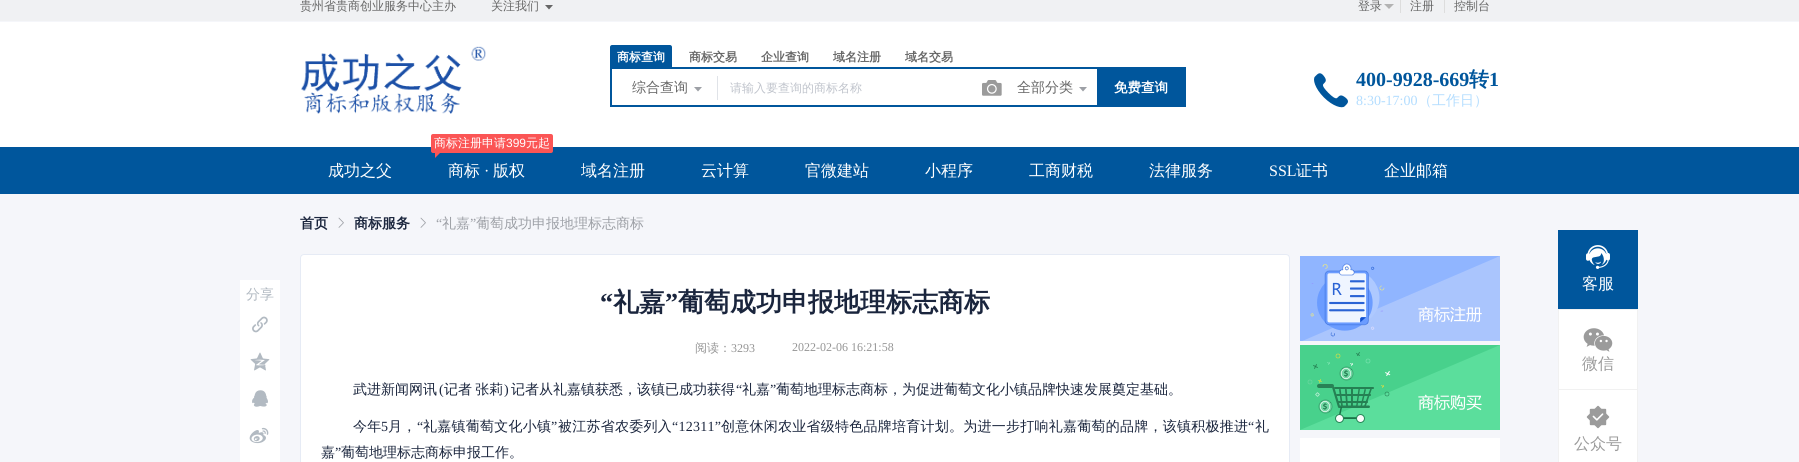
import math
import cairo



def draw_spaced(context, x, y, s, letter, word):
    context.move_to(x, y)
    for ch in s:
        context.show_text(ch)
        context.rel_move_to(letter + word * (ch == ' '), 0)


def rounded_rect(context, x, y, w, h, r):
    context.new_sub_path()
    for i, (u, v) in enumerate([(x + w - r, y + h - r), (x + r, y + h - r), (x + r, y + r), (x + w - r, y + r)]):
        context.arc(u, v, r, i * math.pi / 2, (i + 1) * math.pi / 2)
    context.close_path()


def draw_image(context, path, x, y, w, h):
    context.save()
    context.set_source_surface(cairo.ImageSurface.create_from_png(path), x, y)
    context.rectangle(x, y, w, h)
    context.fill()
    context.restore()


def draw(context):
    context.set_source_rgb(245 / 255, 246 / 255, 250 / 255)
    context.paint()
    context.set_source_rgb(240 / 255, 241 / 255, 243 / 255)
    context.rectangle(0, 0, 1799, 21)
    context.fill()
    context.set_source_rgb(102 / 255, 102 / 255, 102 / 255)
    context.new_path()
    context.move_to(545, 5)
    context.line_to(553, 5)
    context.line_to(549, 9.5)
    context.close_path()
    context.fill()
    context.set_source_rgb(179 / 255, 179 / 255, 179 / 255)
    context.new_path()
    context.move_to(1384, 4)
    context.line_to(1394, 4)
    context.line_to(1389, 9)
    context.close_path()
    context.fill()
    context.set_source_rgb(221 / 255, 221 / 255, 221 / 255)
    context.rectangle(1400, 0, 1, 13)
    context.fill()
    context.rectangle(1444, 0, 1, 13)
    context.fill()
    context.set_source_rgb(1, 1, 1)
    context.rectangle(0, 22, 1799, 125)
    context.fill()
    draw_image(context, "images/1.png", 301, 46, 185, 68)
    context.set_source_rgb(0, 86 / 255, 156 / 255)
    context.new_path()
    context.move_to(612, 45)
    context.line_to(670, 45)
    context.curve_to(671, 45, 672, 46, 672, 47)
    context.line_to(672, 67)
    context.line_to(610, 67)
    context.line_to(610, 47)
    context.curve_to(610, 46, 611, 45, 612, 45)
    context.close_path()
    context.fill()
    context.rectangle(610, 67, 576, 2)
    context.fill()
    context.rectangle(610, 105, 487, 2)
    context.fill()
    context.rectangle(610, 67, 2, 40)
    context.fill()
    context.set_source_rgb(224 / 255, 227 / 255, 232 / 255)
    context.rectangle(717, 76, 1, 24)
    context.fill()
    context.set_source_rgb(157 / 255, 160 / 255, 166 / 255)
    context.new_path()
    context.move_to(694, 87)
    context.line_to(702, 87)
    context.line_to(698, 91.5)
    context.close_path()
    context.fill()
    draw_image(context, "images/2.png", 982, 80, 20, 16)
    context.new_path()
    context.move_to(1079, 87)
    context.line_to(1087, 87)
    context.line_to(1083, 91.5)
    context.close_path()
    context.fill()
    context.set_source_rgb(0, 86 / 255, 156 / 255)
    context.rectangle(1097, 69, 89, 38)
    context.fill()
    draw_image(context, "images/3.png", 1314, 73, 34, 35)
    context.rectangle(0, 147, 1799, 47)
    context.fill()
    context.set_source_rgb(251 / 255, 85 / 255, 85 / 255)
    rounded_rect(context, 431, 134, 122, 19, 2)
    context.fill()
    context.new_path()
    context.move_to(435, 150)
    context.line_to(443, 150)
    context.line_to(435, 158)
    context.close_path()
    context.fill()
    draw_image(context, "images/4.png", 338, 217, 6, 11)
    draw_image(context, "images/4.png", 420, 217, 6, 11)
    context.set_source_rgb(1, 1, 1)
    context.rectangle(240, 280, 40, 182)
    context.fill()
    draw_image(context, "images/5.png", 252, 316, 16, 17)
    draw_image(context, "images/6.png", 250, 352, 20, 19)
    draw_image(context, "images/7.png", 252, 390, 16, 17)
    draw_image(context, "images/8.png", 249, 427, 20, 17)
    rounded_rect(context, 300.5, 254.5, 989, 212, 3.5)
    context.fill_preserve()
    context.set_source_rgb(230 / 255, 235 / 255, 245 / 255)
    context.set_line_width(1)
    context.stroke()
    draw_image(context, "images/9.png", 1300, 256, 200, 85)
    draw_image(context, "images/10.png", 1300, 345, 200, 85)
    context.set_source_rgb(1, 1, 1)
    context.rectangle(1300, 438, 200, 24)
    context.fill()
    context.set_source_rgb(0, 86 / 255, 156 / 255)
    context.rectangle(1558, 230, 80, 79)
    context.fill()
    context.set_source_rgb(241 / 255, 241 / 255, 241 / 255)
    context.rectangle(1558, 309, 80, 1)
    context.fill()
    draw_image(context, "images/11.png", 1586, 245, 24, 24)
    context.set_source_rgb(1, 1, 1)
    context.rectangle(1559, 310, 78, 79)
    context.fill()
    context.set_source_rgb(241 / 255, 241 / 255, 241 / 255)
    context.rectangle(1637, 310, 1, 152)
    context.fill()
    context.rectangle(1558, 389, 80, 1)
    context.fill()
    context.rectangle(1558, 310, 1, 152)
    context.fill()
    draw_image(context, "images/12.png", 1583, 328, 30, 24)
    context.set_source_rgb(1, 1, 1)
    context.rectangle(1559, 390, 78, 72)
    context.fill()
    draw_image(context, "images/13.png", 1586, 405, 24, 24)
    context.select_font_face("WenQuanYi Zen Hei Medium")
    context.set_font_size(12)
    context.set_source_rgb(102 / 255, 102 / 255, 102 / 255)
    context.move_to(300, 10)
    context.show_text("贵州省贵商创业服务中心主办")
    context.move_to(491, 10)
    context.show_text("关注我们")
    context.move_to(1358, 10)
    context.show_text("登录")
    context.move_to(1410, 10)
    context.show_text("注册")
    context.move_to(1454, 10)
    context.show_text("控制台")
    context.select_font_face("WenQuanYi Zen Hei", cairo.FontSlant.NORMAL, cairo.FontWeight.BOLD)
    context.set_source_rgb(1, 1, 1)
    context.move_to(617, 61)
    context.show_text("商标查询")
    context.set_source_rgb(102 / 255, 102 / 255, 102 / 255)
    context.move_to(689, 61)
    context.show_text("商标交易")
    context.move_to(761, 61)
    context.show_text("企业查询")
    context.move_to(833, 61)
    context.show_text("域名注册")
    context.move_to(905, 61)
    context.show_text("域名交易")
    context.select_font_face("WenQuanYi Zen Hei Medium")
    context.set_font_size(14)
    context.move_to(632, 92)
    context.show_text("综合查询")
    context.set_font_size(12)
    context.set_source_rgb(192 / 255, 196 / 255, 204 / 255)
    context.move_to(730, 92)
    context.show_text("请输入要查询的商标名称")
    context.set_font_size(14)
    context.set_source_rgb(102 / 255, 102 / 255, 102 / 255)
    context.move_to(1017, 92)
    context.show_text("全部分类")
    context.select_font_face("WenQuanYi Zen Hei", cairo.FontSlant.NORMAL, cairo.FontWeight.BOLD)
    context.set_font_size(13.5)
    context.set_source_rgb(1, 1, 1)
    context.move_to(1114, 92)
    context.show_text("免费查询")
    context.select_font_face("Liberation Serif", cairo.FontSlant.NORMAL, cairo.FontWeight.BOLD)
    context.set_font_size(20)
    context.set_source_rgb(0, 86 / 255, 156 / 255)
    context.move_to(1356, 86)
    context.show_text("400-9928-669")
    context.select_font_face("WenQuanYi Zen Hei", cairo.FontSlant.NORMAL, cairo.FontWeight.BOLD)
    context.move_to(1469, 86)
    context.show_text("转")
    context.select_font_face("Liberation Serif", cairo.FontSlant.NORMAL, cairo.FontWeight.BOLD)
    context.move_to(1489, 86)
    context.show_text("1")
    context.select_font_face("Liberation Serif")
    context.set_font_size(14)
    context.set_source_rgb(179 / 255, 221 / 255, 1)
    context.move_to(1356, 105)
    context.show_text("8:30-17:00")
    context.select_font_face("WenQuanYi Zen Hei Medium")
    context.move_to(1418, 105)
    context.show_text("（工作日）")
    context.set_font_size(16)
    context.set_source_rgb(1, 1, 1)
    context.move_to(328, 176)
    context.show_text("成功之父")
    context.set_font_size(12)
    context.move_to(434, 147)
    context.show_text("商标注册申请")
    context.select_font_face("Liberation Sans")
    context.move_to(506, 147)
    context.show_text("399")
    context.select_font_face("WenQuanYi Zen Hei Medium")
    context.move_to(526, 147)
    context.show_text("元起")
    context.set_font_size(16)
    context.move_to(448, 176)
    context.show_text("商标")
    context.select_font_face("Liberation Serif")
    context.move_to(484, 176)
    context.show_text("·")
    context.select_font_face("WenQuanYi Zen Hei Medium")
    context.move_to(493, 176)
    context.show_text("版权")
    context.move_to(581, 176)
    context.show_text("域名注册")
    context.move_to(701, 176)
    context.show_text("云计算")
    context.move_to(805, 176)
    context.show_text("官微建站")
    context.move_to(925, 176)
    context.show_text("小程序")
    context.move_to(1029, 176)
    context.show_text("工商财税")
    context.move_to(1149, 176)
    context.show_text("法律服务")
    context.select_font_face("Liberation Serif")
    context.move_to(1269, 176)
    context.show_text("SSL")
    context.select_font_face("WenQuanYi Zen Hei Medium")
    context.move_to(1296, 176)
    context.show_text("证书")
    context.move_to(1384, 176)
    context.show_text("企业邮箱")
    context.select_font_face("WenQuanYi Zen Hei", cairo.FontSlant.NORMAL, cairo.FontWeight.BOLD)
    context.set_font_size(14)
    context.set_source_rgb(26 / 255, 37 / 255, 61 / 255)
    context.move_to(300, 228)
    context.show_text("首页")
    context.move_to(354, 228)
    context.show_text("商标服务")
    context.select_font_face("Liberation Serif")
    context.set_source_rgb(157 / 255, 160 / 255, 166 / 255)
    context.move_to(436, 228)
    context.show_text("“")
    context.select_font_face("WenQuanYi Zen Hei Medium")
    context.move_to(442, 228)
    context.show_text("礼嘉")
    context.select_font_face("Liberation Serif")
    context.move_to(470, 228)
    context.show_text("”")
    context.select_font_face("WenQuanYi Zen Hei Medium")
    context.move_to(476, 228)
    context.show_text("葡萄成功申报地理标志商标")
    context.set_source_rgb(178 / 255, 186 / 255, 194 / 255)
    context.move_to(246, 299)
    context.show_text("分享")
    context.select_font_face("Liberation Serif", cairo.FontSlant.NORMAL, cairo.FontWeight.BOLD)
    context.set_font_size(26)
    context.set_source_rgb(26 / 255, 37 / 255, 61 / 255)
    context.move_to(600, 311)
    context.show_text("“")
    context.select_font_face("WenQuanYi Zen Hei", cairo.FontSlant.NORMAL, cairo.FontWeight.BOLD)
    context.move_to(613, 311)
    context.show_text("礼嘉")
    context.select_font_face("Liberation Serif", cairo.FontSlant.NORMAL, cairo.FontWeight.BOLD)
    context.move_to(665, 311)
    context.show_text("”")
    context.select_font_face("WenQuanYi Zen Hei", cairo.FontSlant.NORMAL, cairo.FontWeight.BOLD)
    context.move_to(678, 311)
    context.show_text("葡萄成功申报地理标志商标")
    context.select_font_face("WenQuanYi Zen Hei Medium")
    context.set_font_size(12)
    context.set_source_rgb(149 / 255, 149 / 255, 149 / 255)
    context.move_to(695, 352)
    context.show_text("阅读：")
    context.select_font_face("Liberation Serif")
    context.move_to(731, 352)
    context.show_text("3293")
    context.move_to(792, 351)
    context.show_text("2022-02-06 16:21:58")
    context.select_font_face("WenQuanYi Zen Hei Medium")
    context.set_font_size(14)
    context.set_source_rgb(26 / 255, 37 / 255, 61 / 255)
    context.move_to(353, 394)
    context.show_text("武进新闻网讯")
    context.select_font_face("Liberation Serif")
    context.move_to(439, 394)
    context.show_text("(")
    context.select_font_face("WenQuanYi Zen Hei Medium")
    draw_spaced(context, 444, 394, "记者 张莉", 0, -1)
    context.select_font_face("Liberation Serif")
    context.move_to(504, 394)
    context.show_text(")")
    context.select_font_face("WenQuanYi Zen Hei Medium")
    context.move_to(511, 394)
    context.show_text("记者从礼嘉镇获悉，该镇已成功获得")
    context.select_font_face("Liberation Serif")
    context.move_to(736, 394)
    context.show_text("“")
    context.select_font_face("WenQuanYi Zen Hei Medium")
    context.move_to(742, 394)
    context.show_text("礼嘉")
    context.select_font_face("Liberation Serif")
    context.move_to(770, 394)
    context.show_text("”")
    context.select_font_face("WenQuanYi Zen Hei Medium")
    context.move_to(776, 394)
    context.show_text("葡萄地理标志商标，为促进葡萄文化小镇品牌快速发展奠定基础。")
    draw_spaced(context, 353, 431, "今年", 0.25, 0)
    context.select_font_face("Liberation Serif")
    draw_spaced(context, 381, 431, "5", 0.25, 0)
    context.select_font_face("WenQuanYi Zen Hei Medium")
    draw_spaced(context, 388, 431, "月，", 0.25, 0)
    context.select_font_face("Liberation Serif")
    draw_spaced(context, 417, 431, "“", 0.25, 0)
    context.select_font_face("WenQuanYi Zen Hei Medium")
    draw_spaced(context, 423, 431, "礼嘉镇葡萄文化小镇", 0.25, 0)
    context.select_font_face("Liberation Serif")
    draw_spaced(context, 551, 431, "”", 0.25, 0)
    context.select_font_face("WenQuanYi Zen Hei Medium")
    draw_spaced(context, 558, 431, "被江苏省农委列入", 0.25, 0)
    context.select_font_face("Liberation Serif")
    draw_spaced(context, 672, 431, "“12311”", 0.25, 0)
    context.select_font_face("WenQuanYi Zen Hei Medium")
    draw_spaced(context, 721, 431, "创意休闲农业省级特色品牌培育计划。为进一步打响礼嘉葡萄的品牌，该镇积极推进", 0.25, 0)
    context.select_font_face("Liberation Serif")
    draw_spaced(context, 1248, 431, "“", 0.25, 0)
    context.select_font_face("WenQuanYi Zen Hei Medium")
    draw_spaced(context, 1255, 431, "礼", 0.25, 0)
    context.move_to(321, 457)
    context.show_text("嘉")
    context.select_font_face("Liberation Serif")
    context.move_to(335, 457)
    context.show_text("”")
    context.select_font_face("WenQuanYi Zen Hei Medium")
    context.move_to(341, 457)
    context.show_text("葡萄地理标志商标申报工作。")
    context.set_font_size(16)
    context.set_source_rgb(1, 1, 1)
    context.move_to(1582, 289)
    context.show_text("客服")
    context.set_source_rgb(155 / 255, 155 / 255, 155 / 255)
    context.move_to(1582, 369)
    context.show_text("微信")
    context.move_to(1574, 449)
    context.show_text("公众号")


surface = cairo.ImageSurface(cairo.Format.RGB24, 1799, 462)
context = cairo.Context(surface)
options = cairo.FontOptions()
options.set_hint_metrics(cairo.HintMetrics.OFF)
options.set_hint_style(cairo.HintStyle.NONE)
context.set_font_options(options)
context.set_miter_limit(4)
draw(context)
surface.write_to_png("out.png")
